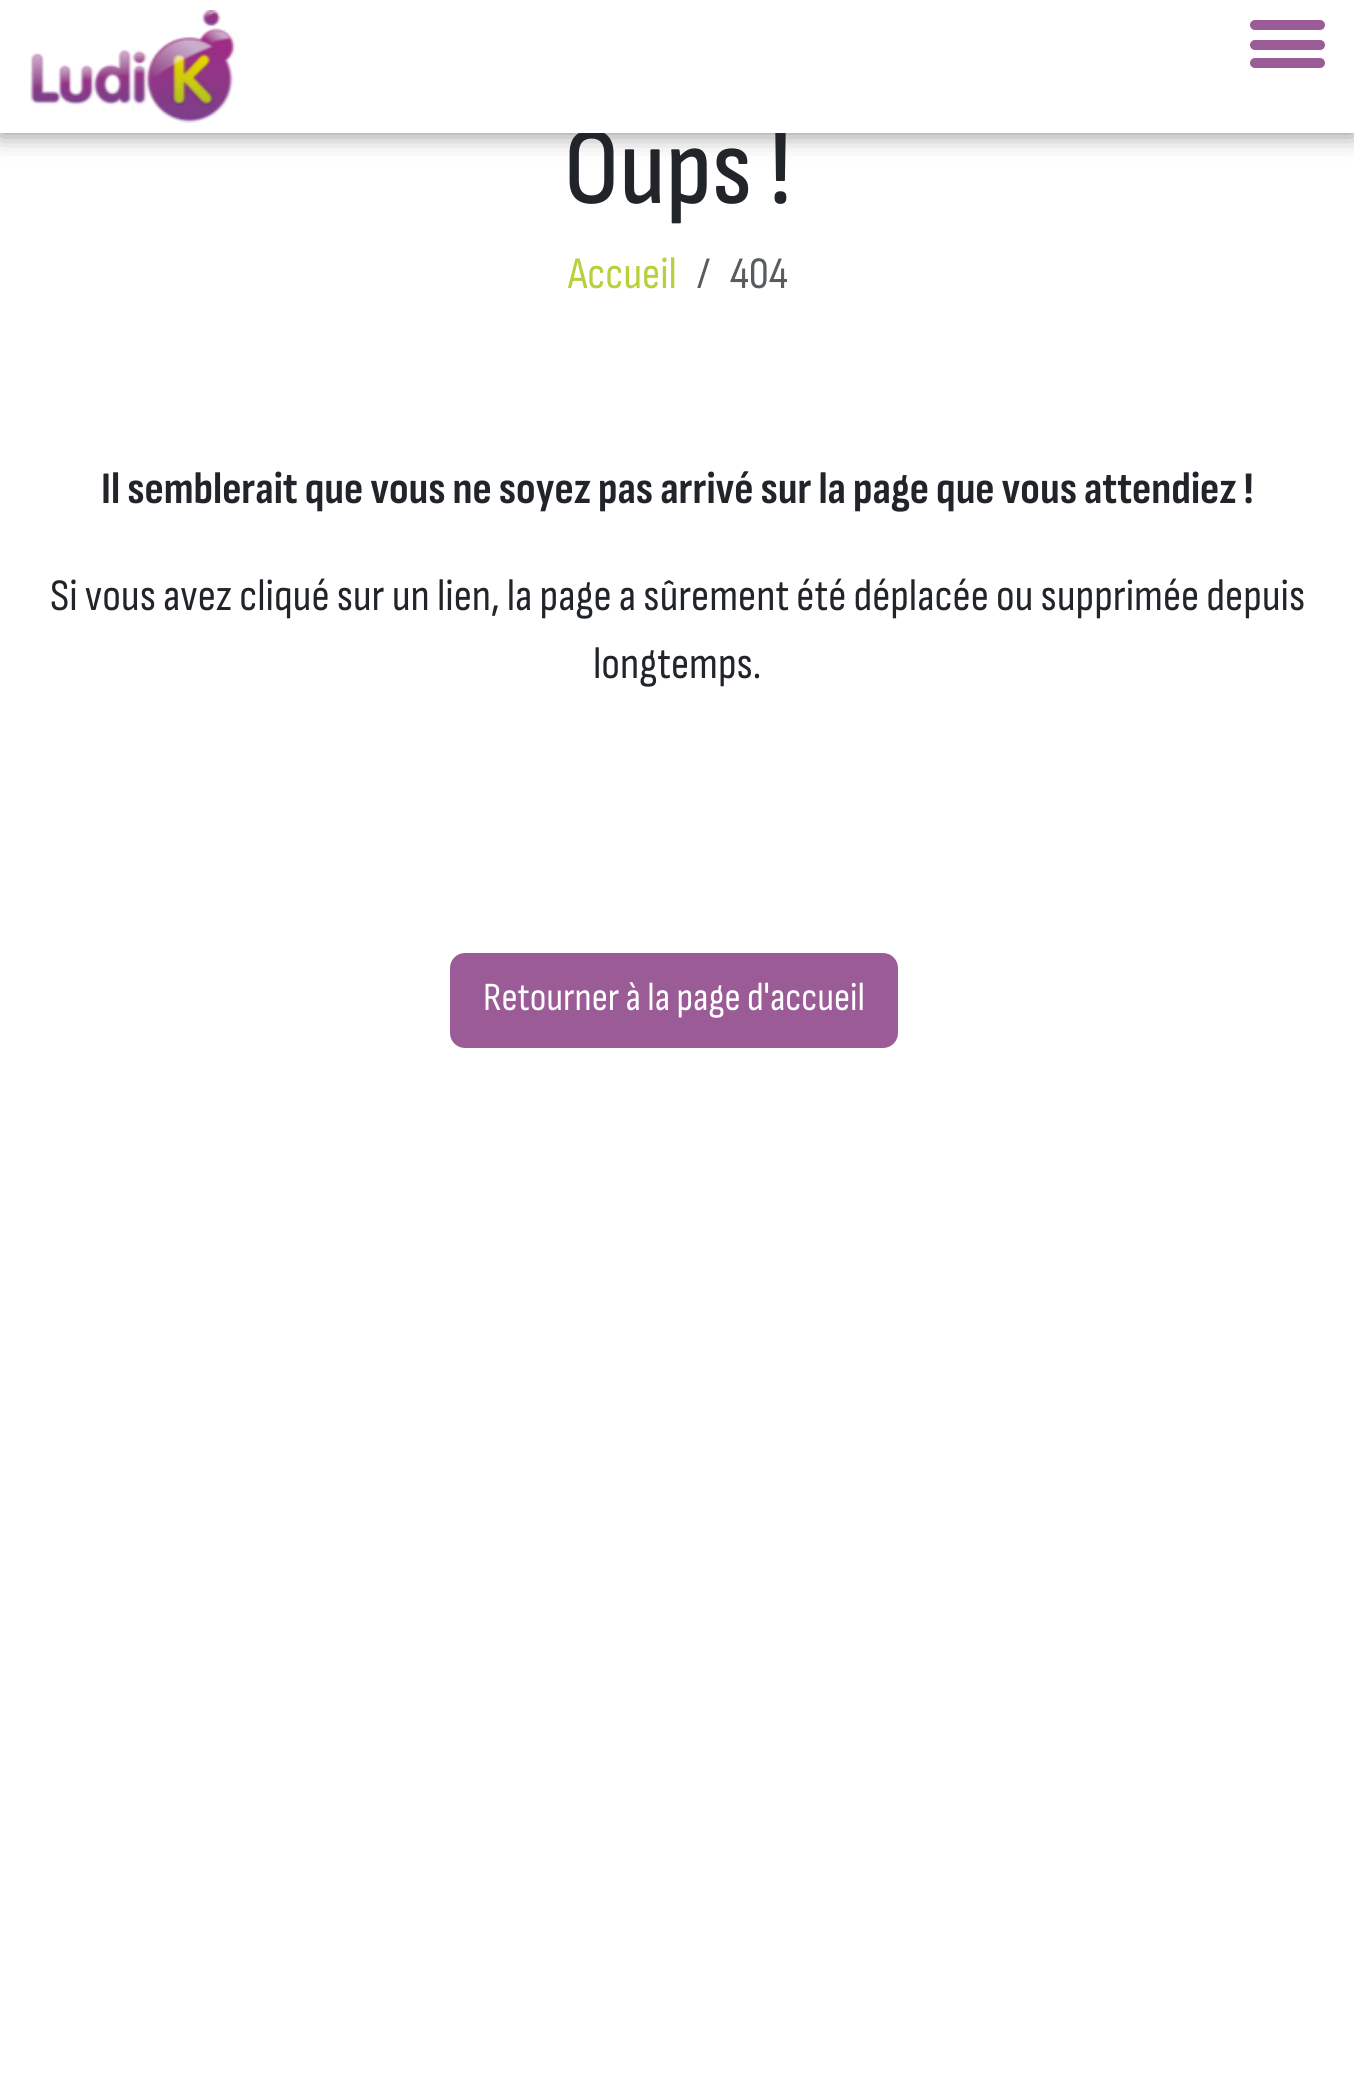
import math
import cairo



def rounded_rect(context, x, y, w, h, r):
    context.new_sub_path()
    for i, (u, v) in enumerate([(x + w - r, y + h - r), (x + r, y + h - r), (x + r, y + r), (x + w - r, y + r)]):
        context.arc(u, v, r, i * math.pi / 2, (i + 1) * math.pi / 2)
    context.close_path()


def draw_shadow(context, x, y, w, h, r, blur, alpha):
    context.push_group_with_content(cairo.Content.ALPHA)
    context.set_operator(cairo.Operator.SOURCE)
    for i in range(15, -16, -2):
        e = blur * i / 6
        if min(w, h) + 2 * e > 0:
            context.set_source_rgba(0, 0, 0, alpha * math.erfc((i - 1) / 8.5) / 2)
            rounded_rect(context, x - e, y - e, w + 2 * e, h + 2 * e, max(0, min(r + e + blur * .6, min(w, h) / 2 + e)))
            context.fill()
    context.mask(context.pop_group())


def draw_image(context, path, x, y, w, h):
    context.save()
    context.set_source_surface(cairo.ImageSurface.create_from_png(path), x, y)
    context.rectangle(x, y, w, h)
    context.fill()
    context.restore()


def draw(context):
    context.set_source_rgb(1, 1, 1)
    context.paint()
    context.set_source_rgb(0, 0, 0)
    draw_shadow(context, 0, 0, 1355, 133, 0, 12.5, 0.5)
    context.set_source_rgb(155 / 255, 91 / 255, 150 / 255)
    rounded_rect(context, 451.5, 954.5, 445, 92, 13.5)
    context.fill_preserve()
    context.set_line_width(3)
    context.stroke()
    context.select_font_face("Sofia Sans Condensed Medium")
    context.set_font_size(110)
    context.set_source_rgb(33 / 255, 37 / 255, 41 / 255)
    context.move_to(564, 203)
    context.show_text("Oups !")
    context.set_source_rgb(1, 1, 1)
    context.rectangle(0, 0, 1354, 133)
    context.fill()
    context.set_source_rgb(155 / 255, 91 / 255, 150 / 255)
    rounded_rect(context, 1250, 58, 75, 10, 5)
    context.fill()
    rounded_rect(context, 1250, 40, 75, 10, 5)
    context.fill()
    rounded_rect(context, 1250, 20, 75, 10, 5)
    context.fill()
    draw_image(context, "images/1.png", 30, 10, 205, 113)
    context.select_font_face("Sofia Sans Condensed")
    context.set_font_size(45)
    context.set_source_rgb(185 / 255, 208 / 255, 61 / 255)
    context.move_to(568, 288)
    context.show_text("Accueil")
    context.set_source_rgb(89 / 255, 92 / 255, 95 / 255)
    context.move_to(697, 288)
    context.show_text("/")
    context.move_to(730, 288)
    context.show_text("404")
    context.select_font_face("Sofia Sans Condensed", cairo.FontSlant.NORMAL, cairo.FontWeight.BOLD)
    context.set_source_rgb(33 / 255, 37 / 255, 41 / 255)
    context.move_to(101, 503)
    context.show_text("Il semblerait que vous ne soyez pas arrivé sur la page que vous attendiez !")
    context.select_font_face("Sofia Sans Condensed")
    context.move_to(50, 610)
    context.show_text("Si vous avez cliqué sur un lien, la page a sûrement été déplacée ou supprimée depuis")
    context.move_to(593, 678)
    context.show_text("longtemps.")
    context.set_font_size(40)
    context.set_source_rgb(1, 1, 1)
    context.move_to(483, 1010)
    context.show_text("Retourner à la page d'accueil")


surface = cairo.ImageSurface(cairo.Format.RGB24, 1354, 2074)
context = cairo.Context(surface)
options = cairo.FontOptions()
options.set_hint_metrics(cairo.HintMetrics.OFF)
options.set_hint_style(cairo.HintStyle.NONE)
context.set_font_options(options)
context.set_miter_limit(4)
draw(context)
surface.write_to_png("out.png")
